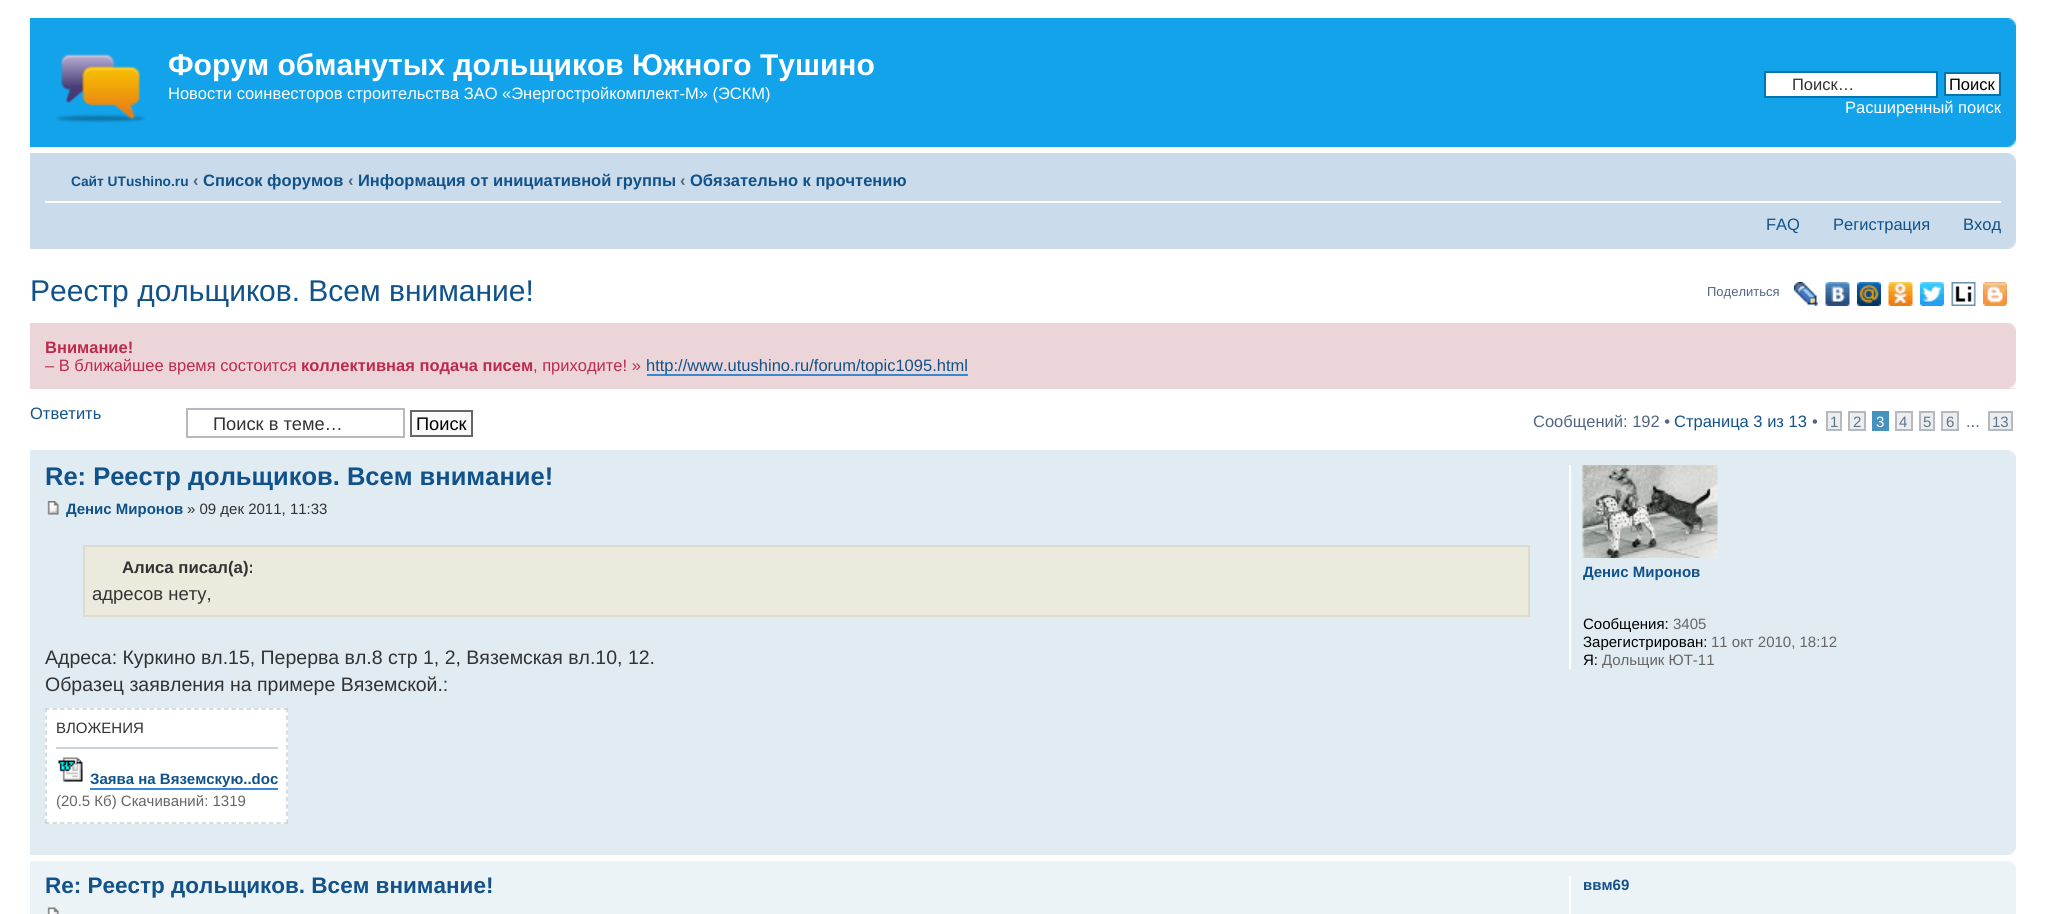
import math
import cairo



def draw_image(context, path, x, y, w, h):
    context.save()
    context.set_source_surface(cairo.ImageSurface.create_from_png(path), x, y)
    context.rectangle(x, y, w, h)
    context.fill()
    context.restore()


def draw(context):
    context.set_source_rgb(1, 1, 1)
    context.paint()
    context.set_source_rgb(18 / 255, 163 / 255, 235 / 255)
    context.rectangle(30, 18, 1986, 129)
    context.fill()
    draw_image(context, "images/1.png", 2007, 18, 9, 8)
    draw_image(context, "images/2.png", 56, 53, 89, 70)
    context.set_source_rgb(1, 1, 1)
    context.rectangle(1765, 72, 172, 25)
    context.fill_preserve()
    context.set_source_rgb(0, 117 / 255, 176 / 255)
    context.stroke()
    context.set_source_rgb(250 / 255, 250 / 255, 250 / 255)
    context.rectangle(1945, 73, 55, 22)
    context.fill_preserve()
    context.set_source_rgb(0, 117 / 255, 176 / 255)
    context.stroke()
    draw_image(context, "images/3.png", 2008, 139, 8, 8)
    context.set_source_rgb(202 / 255, 220 / 255, 235 / 255)
    context.rectangle(30, 153, 1986, 96)
    context.fill()
    draw_image(context, "images/4.png", 2008, 153, 8, 8)
    context.set_source_rgb(1, 1, 1)
    context.rectangle(45, 201, 1956, 2)
    context.fill()
    draw_image(context, "images/5.png", 2008, 241, 8, 8)
    draw_image(context, "images/6.png", 1794, 282, 24, 24)
    draw_image(context, "images/7.png", 1825, 282, 25, 24)
    draw_image(context, "images/8.png", 1857, 282, 24, 24)
    draw_image(context, "images/9.png", 1888, 282, 25, 24)
    draw_image(context, "images/10.png", 1920, 282, 24, 24)
    draw_image(context, "images/11.png", 1951, 282, 25, 24)
    draw_image(context, "images/12.png", 1983, 282, 24, 24)
    context.set_source_rgb(236 / 255, 213 / 255, 216 / 255)
    context.rectangle(30, 323, 1986, 66)
    context.fill()
    draw_image(context, "images/13.png", 2008, 323, 8, 7)
    context.set_source_rgb(54 / 255, 138 / 255, 210 / 255)
    context.rectangle(647, 374, 321, 2)
    context.fill()
    draw_image(context, "images/14.png", 2009, 381, 7, 8)
    context.rectangle(187, 409, 217, 28)
    context.set_source_rgb(180 / 255, 186 / 255, 192 / 255)
    context.stroke()
    context.set_source_rgb(250 / 255, 250 / 255, 250 / 255)
    context.rectangle(411, 411, 61, 25)
    context.fill_preserve()
    context.set_source_rgb(102 / 255, 102 / 255, 102 / 255)
    context.stroke()
    context.set_source_rgb(236 / 255, 237 / 255, 238 / 255)
    context.rectangle(1827, 412, 14, 18)
    context.fill_preserve()
    context.set_source_rgb(180 / 255, 186 / 255, 192 / 255)
    context.stroke()
    context.set_source_rgb(236 / 255, 237 / 255, 238 / 255)
    context.rectangle(1849, 412, 16, 18)
    context.fill_preserve()
    context.set_source_rgb(180 / 255, 186 / 255, 192 / 255)
    context.stroke()
    context.set_source_rgb(70 / 255, 146 / 255, 191 / 255)
    context.rectangle(1872, 411, 17, 20)
    context.fill()
    context.set_source_rgb(236 / 255, 237 / 255, 238 / 255)
    context.rectangle(1896, 412, 16, 18)
    context.fill_preserve()
    context.set_source_rgb(180 / 255, 186 / 255, 192 / 255)
    context.stroke()
    context.set_source_rgb(236 / 255, 237 / 255, 238 / 255)
    context.rectangle(1920, 412, 14, 18)
    context.fill_preserve()
    context.set_source_rgb(180 / 255, 186 / 255, 192 / 255)
    context.stroke()
    context.set_source_rgb(236 / 255, 237 / 255, 238 / 255)
    context.rectangle(1942, 412, 16, 18)
    context.fill_preserve()
    context.set_source_rgb(180 / 255, 186 / 255, 192 / 255)
    context.stroke()
    context.set_source_rgb(236 / 255, 237 / 255, 238 / 255)
    context.rectangle(1989, 412, 23, 18)
    context.fill_preserve()
    context.set_source_rgb(180 / 255, 186 / 255, 192 / 255)
    context.stroke()
    context.set_source_rgb(225 / 255, 235 / 255, 242 / 255)
    context.rectangle(30, 450, 1986, 405)
    context.fill()
    draw_image(context, "images/15.png", 2009, 450, 7, 7)
    draw_image(context, "images/16.png", 47, 501, 12, 14)
    context.set_source_rgb(235 / 255, 234 / 255, 221 / 255)
    context.rectangle(84, 546, 1445, 70)
    context.fill_preserve()
    context.set_source_rgb(219 / 255, 219 / 255, 206 / 255)
    context.stroke()
    context.set_source_rgb(1, 1, 1)
    context.rectangle(45, 708, 243, 116)
    context.fill()
    context.new_path()
    context.move_to(45, 709)
    context.line_to(288, 709)
    context.set_source_rgb(201 / 255, 210 / 255, 216 / 255)
    context.set_line_width(1.5)
    context.set_dash([4.5, 2.96])
    context.stroke()
    context.new_path()
    context.move_to(287, 708)
    context.line_to(287, 823.5)
    context.set_dash([4.5, 2.9])
    context.stroke()
    context.new_path()
    context.move_to(45, 823)
    context.line_to(288, 823)
    context.set_dash([4.5, 2.96])
    context.stroke()
    context.new_path()
    context.move_to(46, 708)
    context.line_to(46, 823.5)
    context.set_dash([4.5, 2.9])
    context.stroke()
    context.rectangle(56, 747, 222, 2)
    context.fill()
    draw_image(context, "images/17.png", 58, 757, 25, 25)
    context.set_source_rgb(54 / 255, 138 / 255, 210 / 255)
    context.rectangle(90, 788, 188, 2)
    context.fill()
    context.set_source_rgb(1, 1, 1)
    context.rectangle(1569, 465, 2, 204)
    context.fill()
    draw_image(context, "images/18.png", 1582, 465, 136, 93)
    draw_image(context, "images/19.png", 2009, 848, 7, 7)
    context.set_source_rgb(236 / 255, 243 / 255, 247 / 255)
    context.rectangle(30, 861, 1986, 53)
    context.fill()
    draw_image(context, "images/20.png", 2009, 861, 7, 7)
    draw_image(context, "images/21.png", 47, 907, 12, 7)
    context.set_source_rgb(1, 1, 1)
    context.rectangle(1569, 876, 2, 38)
    context.fill()
    context.select_font_face("Liberation Sans", cairo.FontSlant.NORMAL, cairo.FontWeight.BOLD)
    context.set_font_size(30)
    context.move_to(168, 75)
    context.show_text("Форум обманутых дольщиков Южного Тушино")
    context.select_font_face("Liberation Sans")
    context.set_font_size(16.5)
    context.move_to(168, 99)
    context.show_text("Новости соинвесторов строительства ЗАО «Энергостройкомплект-М» (ЭСКМ)")
    context.set_source_rgb(51 / 255, 51 / 255, 51 / 255)
    context.move_to(1792, 90)
    context.show_text("Поиск…")
    context.set_source_rgb(0, 0, 0)
    context.move_to(1949, 90)
    context.show_text("Поиск")
    context.set_source_rgb(1, 1, 1)
    context.move_to(1845, 113)
    context.show_text("Расширенный поиск")
    context.select_font_face("Liberation Sans", cairo.FontSlant.NORMAL, cairo.FontWeight.BOLD)
    context.set_font_size(13.75)
    context.set_source_rgb(16 / 255, 82 / 255, 137 / 255)
    context.move_to(71, 186)
    context.show_text("Сайт UTushino.ru")
    context.set_font_size(16.5)
    context.set_source_rgb(83 / 255, 100 / 255, 130 / 255)
    context.move_to(193, 186)
    context.show_text("‹")
    context.set_source_rgb(16 / 255, 82 / 255, 137 / 255)
    context.move_to(203, 186)
    context.show_text("Список форумов")
    context.set_source_rgb(83 / 255, 100 / 255, 130 / 255)
    context.move_to(348, 186)
    context.show_text("‹")
    context.set_source_rgb(16 / 255, 82 / 255, 137 / 255)
    context.move_to(358, 186)
    context.show_text("Информация от инициативной группы")
    context.set_source_rgb(83 / 255, 100 / 255, 130 / 255)
    context.move_to(680, 186)
    context.show_text("‹")
    context.set_source_rgb(16 / 255, 82 / 255, 137 / 255)
    context.move_to(690, 186)
    context.show_text("Обязательно к прочтению")
    context.select_font_face("Liberation Sans")
    context.move_to(1766, 230)
    context.show_text("FAQ")
    context.move_to(1833, 230)
    context.show_text("Регистрация")
    context.move_to(1963, 230)
    context.show_text("Вход")
    context.set_font_size(30)
    context.move_to(30, 301)
    context.show_text("Реестр дольщиков. Всем внимание!")
    context.set_font_size(13)
    context.set_source_rgb(83 / 255, 100 / 255, 130 / 255)
    context.move_to(1707, 296)
    context.show_text("Поделиться")
    context.select_font_face("Liberation Sans", cairo.FontSlant.NORMAL, cairo.FontWeight.BOLD)
    context.set_font_size(16.5)
    context.set_source_rgb(188 / 255, 42 / 255, 77 / 255)
    context.move_to(45, 353)
    context.show_text("Внимание!")
    context.select_font_face("Liberation Sans")
    context.move_to(45, 371)
    context.show_text("– В ближайшее время состоится")
    context.select_font_face("Liberation Sans", cairo.FontSlant.NORMAL, cairo.FontWeight.BOLD)
    context.move_to(301, 371)
    context.show_text("коллективная подача писем")
    context.select_font_face("Liberation Sans")
    context.move_to(533, 371)
    context.show_text(", приходите! »")
    context.set_source_rgb(16 / 255, 82 / 255, 137 / 255)
    context.move_to(646, 371)
    context.show_text("http://www.utushino.ru/forum/topic1095.html")
    context.move_to(30, 419)
    context.show_text("Ответить")
    context.set_font_size(18.25)
    context.set_source_rgb(51 / 255, 51 / 255, 51 / 255)
    context.move_to(213, 430)
    context.show_text("Поиск в теме…")
    context.set_source_rgb(0, 0, 0)
    context.move_to(416, 430)
    context.show_text("Поиск")
    context.set_font_size(16.5)
    context.set_source_rgb(83 / 255, 100 / 255, 130 / 255)
    context.move_to(1533, 427)
    context.show_text("Сообщений: 192 •")
    context.set_source_rgb(16 / 255, 82 / 255, 137 / 255)
    context.move_to(1674, 427)
    context.show_text("Страница 3 из 13")
    context.set_source_rgb(83 / 255, 100 / 255, 130 / 255)
    context.move_to(1812, 427)
    context.show_text("•")
    context.set_font_size(15)
    context.set_source_rgb(92 / 255, 117 / 255, 140 / 255)
    context.move_to(1830, 427)
    context.show_text("1")
    context.move_to(1853, 427)
    context.show_text("2")
    context.set_source_rgb(1, 1, 1)
    context.move_to(1876, 427)
    context.show_text("3")
    context.set_source_rgb(92 / 255, 117 / 255, 140 / 255)
    context.move_to(1899, 427)
    context.show_text("4")
    context.move_to(1923, 427)
    context.show_text("5")
    context.move_to(1946, 427)
    context.show_text("6")
    context.move_to(1992, 427)
    context.show_text("13")
    context.set_font_size(16.5)
    context.set_source_rgb(83 / 255, 100 / 255, 130 / 255)
    context.move_to(1966, 427)
    context.show_text("...")
    context.select_font_face("Liberation Sans", cairo.FontSlant.NORMAL, cairo.FontWeight.BOLD)
    context.set_font_size(25.5)
    context.set_source_rgb(16 / 255, 82 / 255, 137 / 255)
    context.move_to(45, 485)
    context.show_text("Re: Реестр дольщиков. Всем внимание!")
    context.set_font_size(15)
    context.move_to(66, 514)
    context.show_text("Денис Миронов")
    context.select_font_face("Liberation Sans")
    context.set_source_rgb(51 / 255, 51 / 255, 51 / 255)
    context.move_to(187, 514)
    context.show_text("» 09 дек 2011, 11:33")
    context.select_font_face("Liberation Sans", cairo.FontSlant.NORMAL, cairo.FontWeight.BOLD)
    context.set_font_size(16.75)
    context.move_to(122, 573)
    context.show_text("Алиса писал(а):")
    context.select_font_face("Liberation Sans")
    context.set_font_size(18.5)
    context.move_to(92, 600)
    context.show_text("адресов нету,")
    context.set_font_size(19.5)
    context.move_to(45, 664)
    context.show_text("Адреса: Куркино вл.15, Перерва вл.8 стр 1, 2, Вяземская вл.10, 12.")
    context.move_to(45, 691)
    context.show_text("Образец заявления на примере Вяземской.:")
    context.set_font_size(15)
    context.move_to(56, 733)
    context.show_text("ВЛОЖЕНИЯ")
    context.select_font_face("Liberation Sans", cairo.FontSlant.NORMAL, cairo.FontWeight.BOLD)
    context.set_source_rgb(16 / 255, 82 / 255, 137 / 255)
    context.move_to(90, 784)
    context.show_text("Заява на Вяземскую..doc")
    context.select_font_face("Liberation Sans")
    context.set_source_rgb(102 / 255, 102 / 255, 102 / 255)
    context.move_to(56, 806)
    context.show_text("(20.5 Кб) Скачиваний: 1319")
    context.select_font_face("Liberation Sans", cairo.FontSlant.NORMAL, cairo.FontWeight.BOLD)
    context.set_source_rgb(16 / 255, 82 / 255, 137 / 255)
    context.move_to(1583, 577)
    context.show_text("Денис Миронов")
    context.select_font_face("Liberation Sans")
    context.set_source_rgb(0, 0, 0)
    context.move_to(1583, 629)
    context.show_text("Сообщения:")
    context.set_source_rgb(102 / 255, 102 / 255, 102 / 255)
    context.move_to(1673, 629)
    context.show_text("3405")
    context.set_source_rgb(0, 0, 0)
    context.move_to(1583, 647)
    context.show_text("Зарегистрирован:")
    context.set_source_rgb(102 / 255, 102 / 255, 102 / 255)
    context.move_to(1711, 647)
    context.show_text("11 окт 2010, 18:12")
    context.set_source_rgb(0, 0, 0)
    context.move_to(1583, 665)
    context.show_text("Я:")
    context.set_source_rgb(102 / 255, 102 / 255, 102 / 255)
    context.move_to(1602, 665)
    context.show_text("Дольщик ЮТ-11")
    context.select_font_face("Liberation Sans", cairo.FontSlant.NORMAL, cairo.FontWeight.BOLD)
    context.set_font_size(22.5)
    context.set_source_rgb(16 / 255, 82 / 255, 137 / 255)
    context.move_to(45, 893)
    context.show_text("Re: Реестр дольщиков. Всем внимание!")
    context.set_font_size(15)
    context.move_to(1583, 890)
    context.show_text("ввм69")


surface = cairo.ImageSurface(cairo.Format.RGB24, 2046, 914)
context = cairo.Context(surface)
options = cairo.FontOptions()
options.set_hint_metrics(cairo.HintMetrics.OFF)
options.set_hint_style(cairo.HintStyle.NONE)
context.set_font_options(options)
context.set_miter_limit(4)
draw(context)
surface.write_to_png("out.png")
